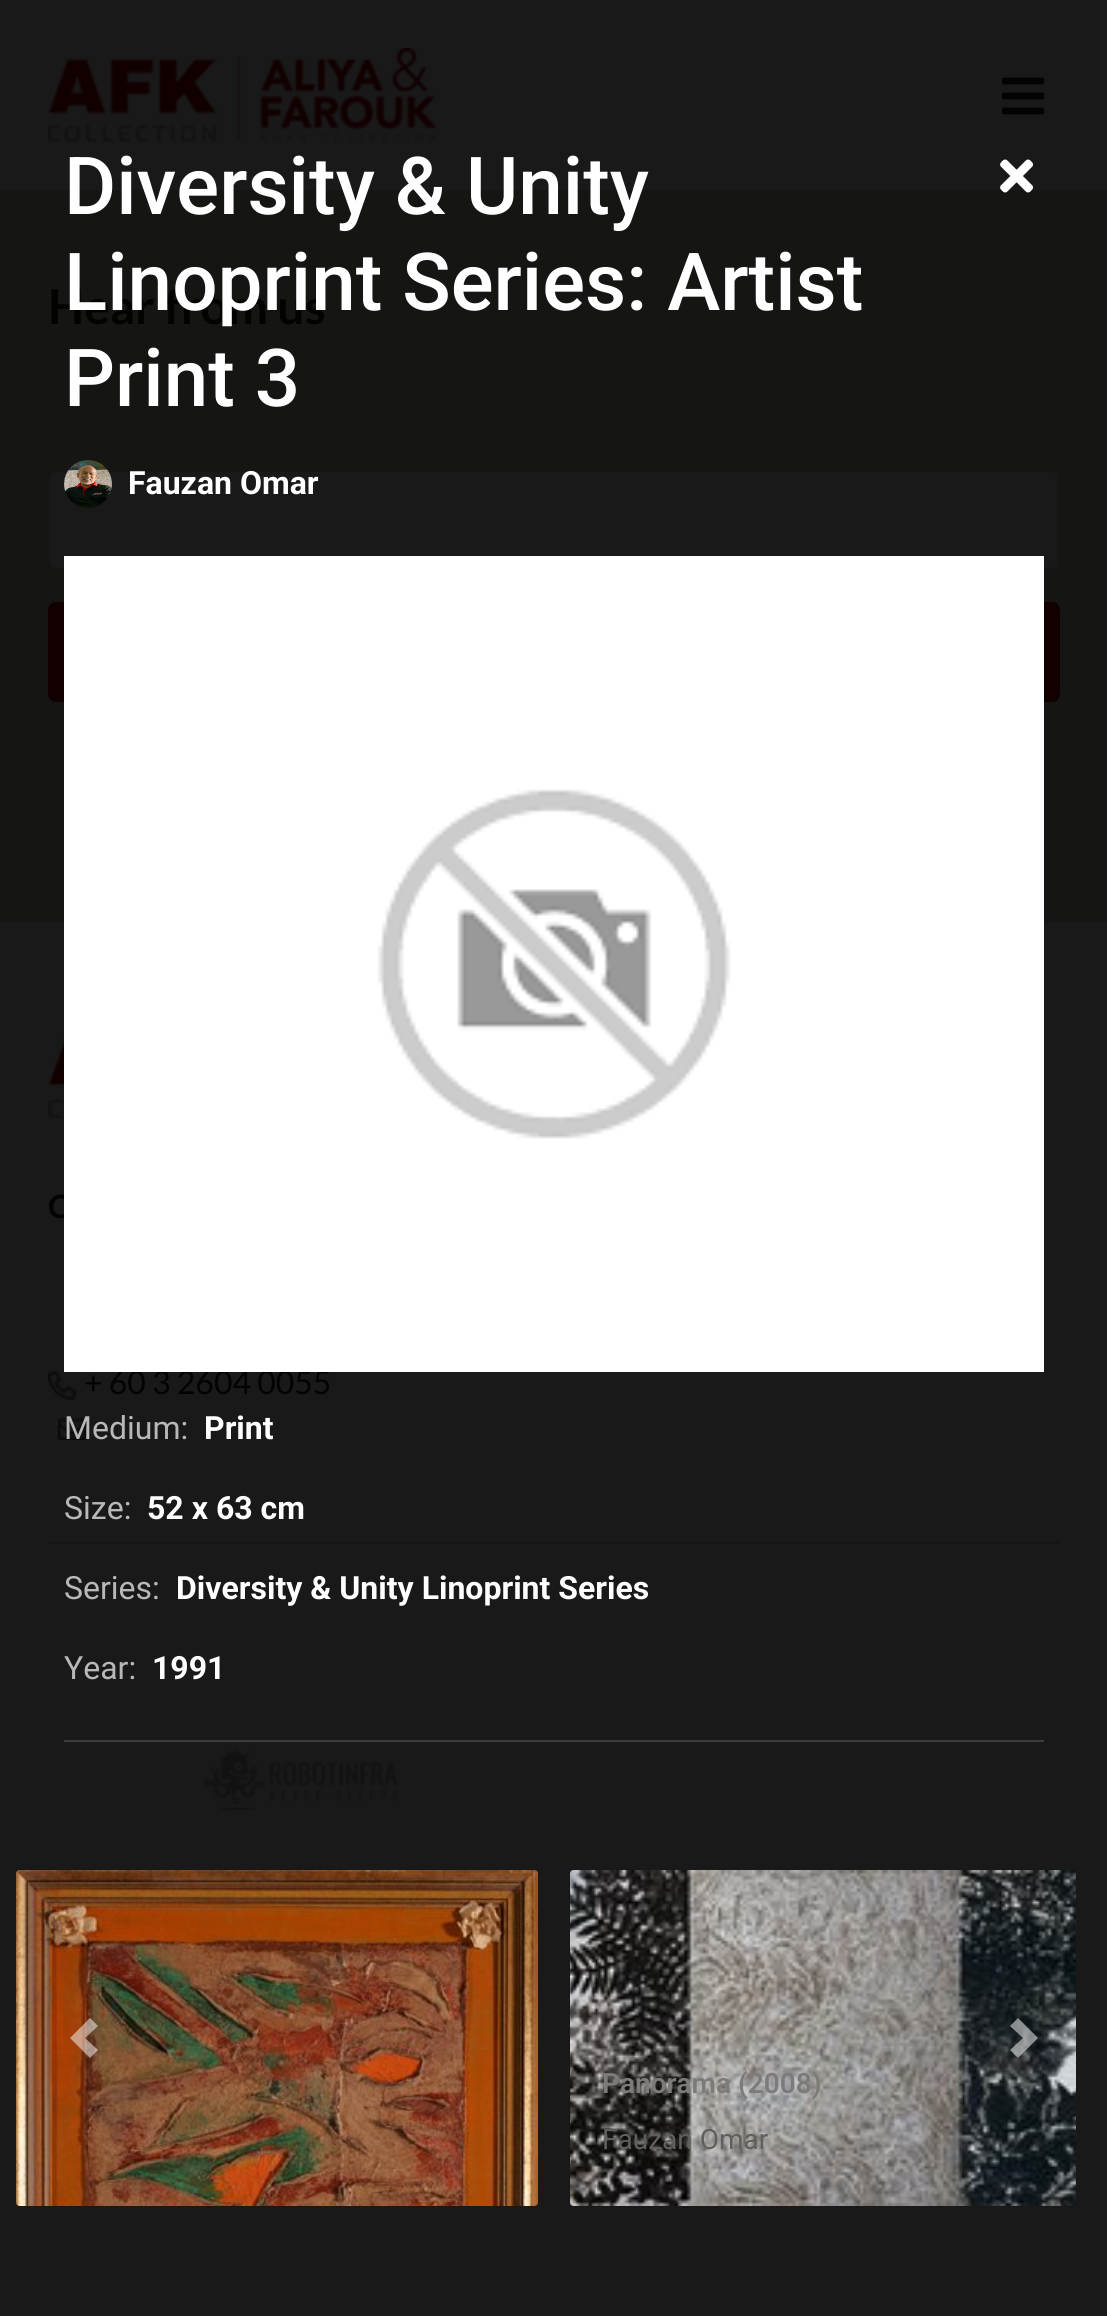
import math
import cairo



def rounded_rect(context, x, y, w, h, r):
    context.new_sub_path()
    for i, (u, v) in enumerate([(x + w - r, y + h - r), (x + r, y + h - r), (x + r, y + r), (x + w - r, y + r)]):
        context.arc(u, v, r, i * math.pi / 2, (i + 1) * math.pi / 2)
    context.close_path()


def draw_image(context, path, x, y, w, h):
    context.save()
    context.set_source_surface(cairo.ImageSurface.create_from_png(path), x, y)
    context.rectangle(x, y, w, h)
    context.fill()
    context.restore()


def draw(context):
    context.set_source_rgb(25 / 255, 25 / 255, 25 / 255)
    context.paint()
    draw_image(context, "images/1.png", 48, 48, 388, 94)
    draw_image(context, "images/2.png", 1002, 77, 42, 38)
    context.set_source_rgb(21 / 255, 21 / 255, 20 / 255)
    context.rectangle(0, 190, 1107, 732)
    context.fill()
    draw_image(context, "images/3.png", 1000, 159, 34, 34)
    context.set_source_rgb(25 / 255, 25 / 255, 25 / 255)
    rounded_rect(context, 49, 471, 1010, 98, 7)
    context.fill_preserve()
    context.set_source_rgb(21 / 255, 21 / 255, 20 / 255)
    context.stroke()
    draw_image(context, "images/4.png", 64, 460, 48, 48)
    context.set_source_rgb(61 / 255, 61 / 255, 61 / 255)
    context.rectangle(64, 1740, 980, 2)
    context.fill()
    draw_image(context, "images/6.png", 16, 1870, 522, 336)
    context.set_source_rgba(1, 1, 1, 0.5)
    context.new_path()
    context.move_to(90, 2018)
    context.line_to(70, 2038)
    context.line_to(90, 2058)
    context.line_to(98, 2050)
    context.line_to(85, 2038)
    context.line_to(98, 2026)
    context.close_path()
    context.fill()
    draw_image(context, "images/7.png", 570, 1870, 506, 336)
    context.new_path()
    context.move_to(1018, 2018)
    context.line_to(1010, 2026)
    context.line_to(1023, 2038)
    context.line_to(1010, 2050)
    context.line_to(1018, 2058)
    context.line_to(1038, 2038)
    context.close_path()
    context.fill()
    context.set_source_rgb(18 / 255, 0, 1 / 255)
    rounded_rect(context, 48, 602, 1012, 100, 8)
    context.fill()
    context.set_source_rgb(21 / 255, 21 / 255, 20 / 255)
    context.rectangle(48, 1542, 1012, 2)
    context.fill()
    draw_image(context, "images/8.png", 48, 1038, 16, 80)
    draw_image(context, "images/9.png", 48, 1370, 29, 30)
    draw_image(context, "images/10.png", 58, 1418, 28, 22)
    draw_image(context, "images/11.png", 204, 1746, 194, 64)
    context.select_font_face("Roboto Medium")
    context.set_font_size(80)
    context.set_source_rgb(1, 1, 1)
    context.move_to(64, 214)
    context.show_text("Diversity & Unity")
    context.move_to(64, 406)
    context.show_text("Print 3")
    context.select_font_face("Roboto", cairo.FontSlant.NORMAL, cairo.FontWeight.BOLD)
    context.set_font_size(32)
    context.move_to(128, 494)
    context.show_text("Fauzan Omar")
    context.select_font_face("Roboto")
    context.set_source_rgb(184 / 255, 184 / 255, 184 / 255)
    context.move_to(64, 1439)
    context.show_text("Medium:")
    context.select_font_face("Roboto", cairo.FontSlant.NORMAL, cairo.FontWeight.BOLD)
    context.set_source_rgb(1, 1, 1)
    context.move_to(204, 1439)
    context.show_text("Print")
    context.select_font_face("Roboto")
    context.set_source_rgb(184 / 255, 184 / 255, 184 / 255)
    context.move_to(64, 1519)
    context.show_text("Size:")
    context.select_font_face("Roboto", cairo.FontSlant.NORMAL, cairo.FontWeight.BOLD)
    context.set_source_rgb(1, 1, 1)
    context.move_to(147, 1519)
    context.show_text("52 x 63 cm")
    context.select_font_face("Roboto")
    context.set_source_rgb(184 / 255, 184 / 255, 184 / 255)
    context.move_to(64, 1599)
    context.show_text("Series:")
    context.select_font_face("Roboto", cairo.FontSlant.NORMAL, cairo.FontWeight.BOLD)
    context.set_source_rgb(1, 1, 1)
    context.move_to(176, 1599)
    context.show_text("Diversity & Unity Linoprint Series")
    context.select_font_face("Roboto")
    context.set_source_rgb(184 / 255, 184 / 255, 184 / 255)
    context.move_to(64, 1679)
    context.show_text("Year:")
    context.select_font_face("Roboto", cairo.FontSlant.NORMAL, cairo.FontWeight.BOLD)
    context.set_source_rgb(1, 1, 1)
    context.move_to(152, 1679)
    context.show_text("1991")
    context.select_font_face("Roboto SemiBold")
    context.set_font_size(28)
    context.set_source_rgb(124 / 255, 123 / 255, 122 / 255)
    context.move_to(602, 2093)
    context.show_text("Panorama (2008)")
    context.select_font_face("Roboto")
    context.set_source_rgb(96 / 255, 95 / 255, 92 / 255)
    context.move_to(602, 2149)
    context.show_text("Fauzan Omar")
    context.select_font_face("Lato", cairo.FontSlant.NORMAL, cairo.FontWeight.BOLD)
    context.set_font_size(48)
    context.set_source_rgb(3 / 255, 3 / 255, 2 / 255)
    context.move_to(48, 324)
    context.show_text("Hear from us")
    context.select_font_face("Roboto Medium")
    context.set_font_size(80)
    context.set_source_rgb(1, 1, 1)
    context.move_to(64, 310)
    context.show_text("Linoprint Series: Artist")
    context.select_font_face("Lato", cairo.FontSlant.NORMAL, cairo.FontWeight.BOLD)
    context.set_font_size(32)
    context.set_source_rgb(3 / 255, 3 / 255, 2 / 255)
    context.move_to(48, 1218)
    context.show_text("C")
    context.select_font_face("Lato")
    context.move_to(84, 1394)
    context.show_text("+ 60 3 2604 0055")
    draw_image(context, "images/5.png", 64, 556, 980, 816)


surface = cairo.ImageSurface(cairo.Format.RGB24, 1107, 2316)
context = cairo.Context(surface)
options = cairo.FontOptions()
options.set_hint_metrics(cairo.HintMetrics.OFF)
options.set_hint_style(cairo.HintStyle.NONE)
context.set_font_options(options)
context.set_miter_limit(4)
draw(context)
surface.write_to_png("out.png")
